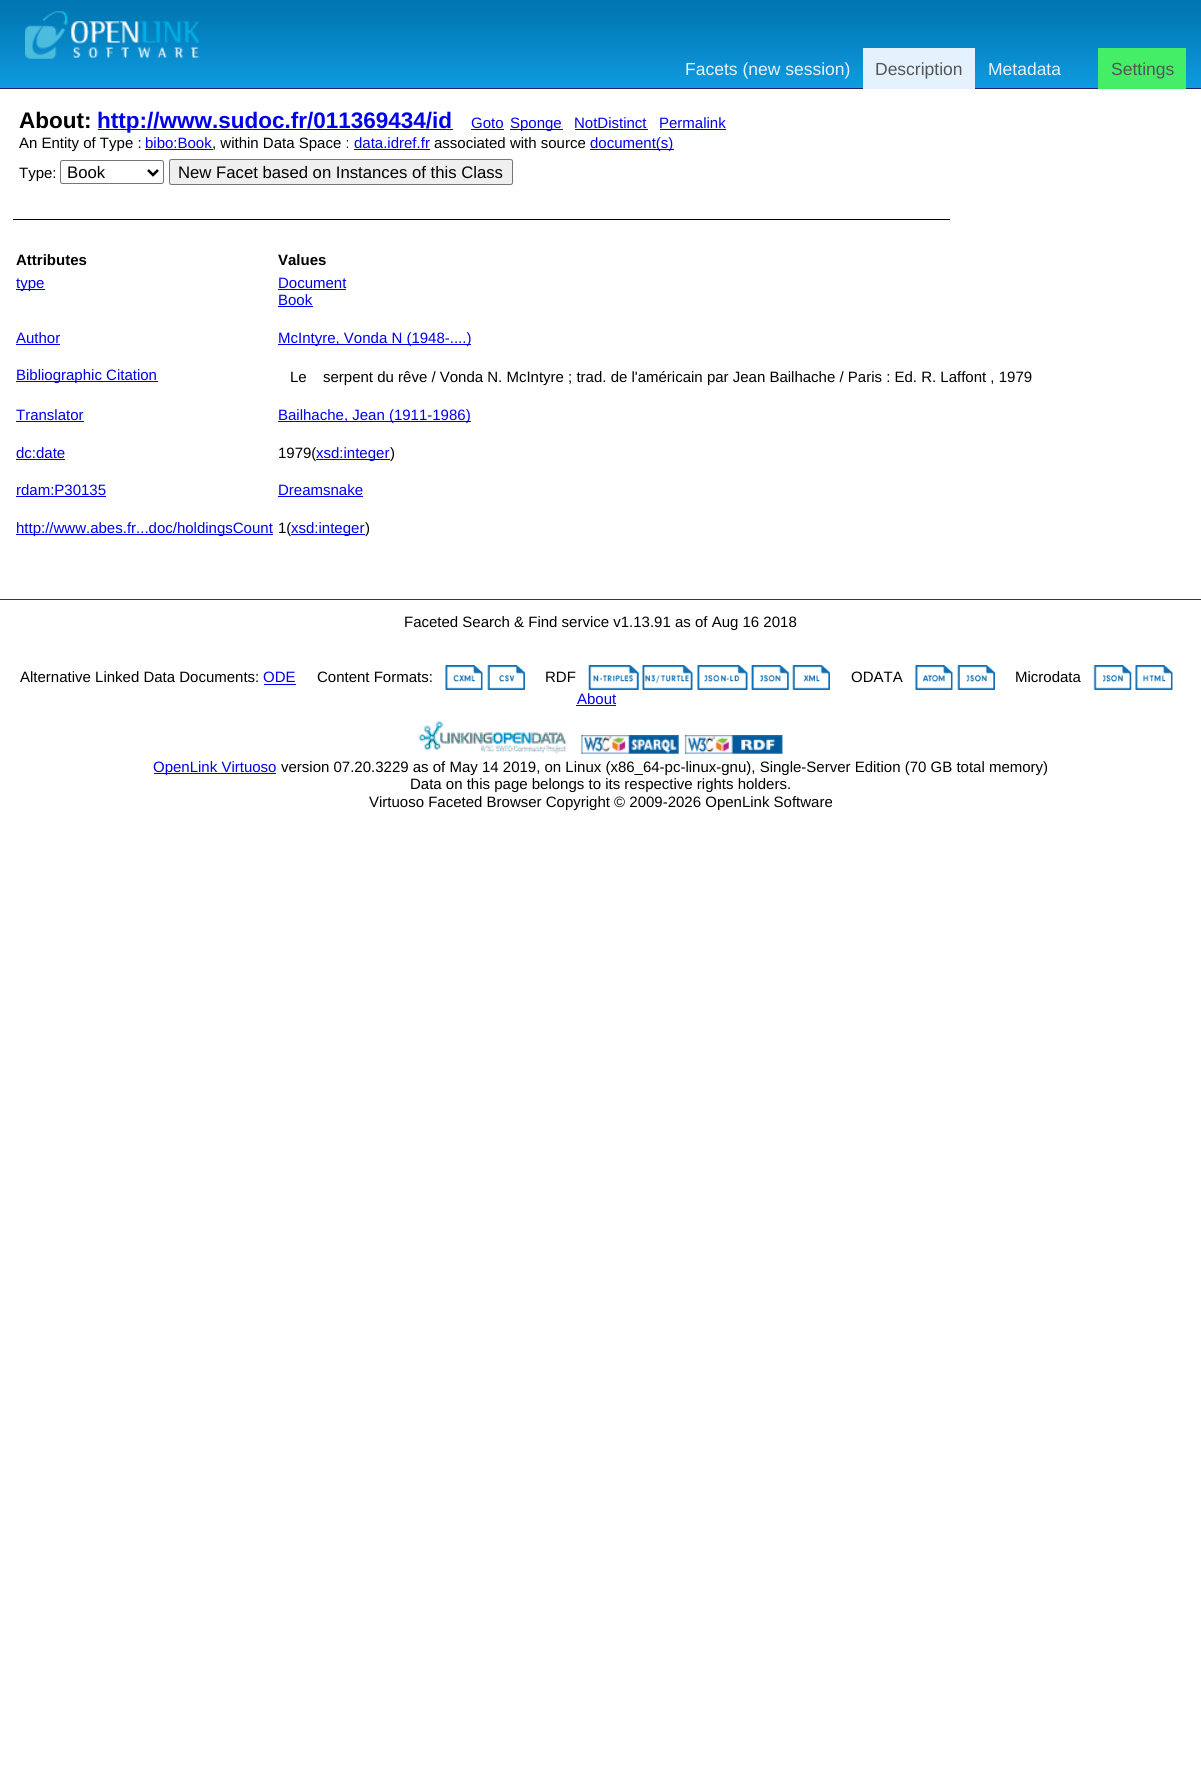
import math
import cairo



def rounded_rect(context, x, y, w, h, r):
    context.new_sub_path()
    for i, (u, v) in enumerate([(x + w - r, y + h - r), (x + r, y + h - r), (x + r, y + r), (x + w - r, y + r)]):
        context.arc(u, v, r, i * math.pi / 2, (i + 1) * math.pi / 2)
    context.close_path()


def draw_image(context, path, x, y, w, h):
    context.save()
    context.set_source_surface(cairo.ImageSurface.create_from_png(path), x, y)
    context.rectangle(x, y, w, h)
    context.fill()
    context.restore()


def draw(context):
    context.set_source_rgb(1, 1, 1)
    context.paint()
    draw_image(context, "images/1.png", 0, 0, 1201, 88)
    context.set_source_rgb(34 / 255, 34 / 255, 102 / 255)
    context.rectangle(0, 88, 1201, 1)
    context.fill()
    draw_image(context, "images/2.png", 25, 11, 174, 48)
    context.set_source_rgb(228 / 255, 242 / 255, 253 / 255)
    context.rectangle(863, 48, 112, 41)
    context.fill()
    context.set_source_rgb(68 / 255, 238 / 255, 102 / 255)
    context.rectangle(1098, 48, 88, 41)
    context.fill()
    context.set_source_rgb(0, 0, 238 / 255)
    context.rectangle(98, 129, 355, 1)
    context.fill()
    context.rectangle(471, 129, 33, 1)
    context.fill()
    context.rectangle(510, 129, 53, 1)
    context.fill()
    context.rectangle(575, 129, 73, 1)
    context.fill()
    context.rectangle(660, 129, 66, 1)
    context.fill()
    context.rectangle(145, 149, 68, 1)
    context.fill()
    context.rectangle(354, 149, 76, 1)
    context.fill()
    context.rectangle(590, 149, 84, 1)
    context.fill()
    rounded_rect(context, 60.5, 160.5, 103, 23, 2)
    context.set_source_rgb(118 / 255, 118 / 255, 118 / 255)
    context.set_line_width(1)
    context.stroke()
    context.new_path()
    context.move_to(148, 170)
    context.line_to(153, 175)
    context.line_to(158, 170)
    context.set_source_rgb(0, 0, 0)
    context.set_line_width(2.5)
    context.stroke()
    context.set_source_rgb(239 / 255, 239 / 255, 239 / 255)
    rounded_rect(context, 169.5, 159.5, 343, 25, 2)
    context.fill_preserve()
    context.set_source_rgb(118 / 255, 118 / 255, 118 / 255)
    context.set_line_width(1)
    context.stroke()
    context.set_source_rgb(0, 0, 0)
    context.rectangle(13, 219, 937, 1)
    context.fill()
    context.set_source_rgb(0, 0, 238 / 255)
    context.rectangle(16, 289, 29, 1)
    context.fill()
    context.rectangle(278, 289, 68, 1)
    context.fill()
    context.rectangle(278, 306, 35, 1)
    context.fill()
    context.rectangle(16, 344, 44, 1)
    context.fill()
    context.rectangle(278, 344, 193, 1)
    context.fill()
    context.rectangle(16, 381, 142, 1)
    context.fill()
    context.rectangle(16, 421, 68, 1)
    context.fill()
    context.rectangle(278, 421, 193, 1)
    context.fill()
    context.rectangle(16, 459, 49, 1)
    context.fill()
    context.rectangle(16, 496, 90, 1)
    context.fill()
    context.rectangle(278, 496, 85, 1)
    context.fill()
    context.rectangle(16, 534, 257, 1)
    context.fill()
    context.set_source_rgb(51 / 255, 51 / 255, 85 / 255)
    context.rectangle(0, 599, 1201, 1)
    context.fill()
    context.set_source_rgb(0, 0, 238 / 255)
    context.rectangle(264, 684, 32, 1)
    context.fill()
    draw_image(context, "images/3.png", 445, 665, 38, 25)
    draw_image(context, "images/4.png", 487, 665, 38, 25)
    draw_image(context, "images/5.png", 588, 665, 51, 25)
    draw_image(context, "images/6.png", 642, 665, 51, 25)
    draw_image(context, "images/7.png", 697, 665, 51, 25)
    draw_image(context, "images/8.png", 751, 665, 38, 25)
    draw_image(context, "images/9.png", 792, 665, 38, 25)
    draw_image(context, "images/10.png", 915, 665, 38, 25)
    draw_image(context, "images/11.png", 957, 665, 38, 25)
    draw_image(context, "images/12.png", 1093, 665, 39, 25)
    draw_image(context, "images/13.png", 1135, 665, 38, 25)
    context.rectangle(576, 705, 40, 1)
    context.fill()
    draw_image(context, "images/14.png", 418, 721, 149, 33)
    draw_image(context, "images/15.png", 581, 735, 98, 19)
    draw_image(context, "images/16.png", 684, 735, 99, 19)
    context.rectangle(154, 773, 122, 1)
    context.fill()
    context.select_font_face("Liberation Sans")
    context.set_font_size(17.5)
    context.set_source_rgb(233 / 255, 242 / 255, 247 / 255)
    context.move_to(685, 75)
    context.show_text("Facets (new session)")
    context.set_source_rgb(85 / 255, 85 / 255, 85 / 255)
    context.move_to(875, 75)
    context.show_text("Description")
    context.set_source_rgb(233 / 255, 242 / 255, 247 / 255)
    context.move_to(988, 75)
    context.show_text("Metadata")
    context.set_source_rgb(85 / 255, 85 / 255, 85 / 255)
    context.move_to(1111, 75)
    context.show_text("Settings")
    context.select_font_face("Liberation Sans", cairo.FontSlant.NORMAL, cairo.FontWeight.BOLD)
    context.set_font_size(22.5)
    context.set_source_rgb(0, 0, 0)
    context.move_to(19, 128)
    context.show_text("About:")
    context.set_source_rgb(0, 0, 238 / 255)
    context.move_to(97, 128)
    context.show_text("http://www.sudoc.fr/011369434/id")
    context.select_font_face("Liberation Sans")
    context.set_font_size(15)
    context.move_to(471, 128)
    context.show_text("Goto")
    context.move_to(510, 128)
    context.show_text("Sponge")
    context.move_to(574, 128)
    context.show_text("NotDistinct")
    context.move_to(659, 128)
    context.show_text("Permalink")
    context.set_source_rgb(0, 0, 0)
    context.move_to(19, 148)
    context.show_text("An Entity of Type :")
    context.set_source_rgb(0, 0, 238 / 255)
    context.move_to(145, 148)
    context.show_text("bibo:Book")
    context.set_source_rgb(0, 0, 0)
    context.move_to(212, 148)
    context.show_text(", within Data Space :")
    context.set_source_rgb(0, 0, 238 / 255)
    context.move_to(354, 148)
    context.show_text("data.idref.fr")
    context.set_source_rgb(0, 0, 0)
    context.move_to(434, 148)
    context.show_text("associated with source")
    context.set_source_rgb(0, 0, 238 / 255)
    context.move_to(590, 148)
    context.show_text("document(s)")
    context.set_source_rgb(0, 0, 0)
    context.move_to(19, 178)
    context.show_text("Type:")
    context.set_font_size(16.7)
    context.move_to(67, 178)
    context.show_text("Book")
    context.move_to(178, 178)
    context.show_text("New Facet based on Instances of this Class")
    context.select_font_face("Liberation Sans", cairo.FontSlant.NORMAL, cairo.FontWeight.BOLD)
    context.set_font_size(15)
    context.move_to(16, 265)
    context.show_text("Attributes")
    context.move_to(278, 265)
    context.show_text("Values")
    context.select_font_face("Liberation Sans")
    context.set_source_rgb(0, 0, 238 / 255)
    context.move_to(16, 288)
    context.show_text("type")
    context.move_to(278, 288)
    context.show_text("Document")
    context.move_to(278, 305)
    context.show_text("Book")
    context.move_to(16, 343)
    context.show_text("Author")
    context.move_to(278, 343)
    context.show_text("McIntyre, Vonda N (1948-....)")
    context.move_to(16, 380)
    context.show_text("Bibliographic Citation")
    context.set_source_rgb(0, 0, 0)
    context.move_to(290, 382)
    context.show_text("Le")
    context.move_to(323, 382)
    context.show_text("serpent du rêve / Vonda N. McIntyre ; trad. de l'américain par Jean Bailhache / Paris : Ed. R. Laffont , 1979")
    context.set_source_rgb(0, 0, 238 / 255)
    context.move_to(16, 420)
    context.show_text("Translator")
    context.move_to(278, 420)
    context.show_text("Bailhache, Jean (1911-1986)")
    context.move_to(16, 458)
    context.show_text("dc:date")
    context.set_source_rgb(0, 0, 0)
    context.move_to(278, 458)
    context.show_text("1979(")
    context.set_source_rgb(0, 0, 238 / 255)
    context.rectangle(316, 459, 74, 1)
    context.fill()
    context.move_to(316, 458)
    context.show_text("xsd:integer")
    context.set_source_rgb(0, 0, 0)
    context.move_to(390, 458)
    context.show_text(")")
    context.set_source_rgb(0, 0, 238 / 255)
    context.move_to(16, 495)
    context.show_text("rdam:P30135")
    context.move_to(278, 495)
    context.show_text("Dreamsnake")
    context.move_to(16, 533)
    context.show_text("http://www.abes.fr...doc/holdingsCount")
    context.set_source_rgb(0, 0, 0)
    context.move_to(278, 533)
    context.show_text("1(")
    context.set_source_rgb(0, 0, 238 / 255)
    context.rectangle(291, 534, 74, 1)
    context.fill()
    context.move_to(291, 533)
    context.show_text("xsd:integer")
    context.set_source_rgb(0, 0, 0)
    context.move_to(365, 533)
    context.show_text(")")
    context.move_to(404, 627)
    context.show_text("Faceted Search & Find service v1.13.91 as of Aug 16 2018")
    context.move_to(20, 682)
    context.show_text("Alternative Linked Data Documents:")
    context.set_source_rgb(0, 0, 238 / 255)
    context.move_to(263, 682)
    context.show_text("ODE")
    context.set_source_rgb(0, 0, 0)
    context.move_to(317, 682)
    context.show_text("Content Formats:")
    context.move_to(545, 682)
    context.show_text("RDF")
    context.move_to(851, 682)
    context.show_text("ODATA")
    context.move_to(1015, 682)
    context.show_text("Microdata")
    context.set_source_rgb(0, 0, 238 / 255)
    context.move_to(577, 704)
    context.show_text("About")
    context.move_to(153, 772)
    context.show_text("OpenLink Virtuoso")
    context.set_source_rgb(0, 0, 0)
    context.move_to(281, 772)
    context.show_text("version 07.20.3229 as of May 14 2019, on Linux (x86_64-pc-linux-gnu), Single-Server Edition (70 GB total memory)")
    context.move_to(410, 789)
    context.show_text("Data on this page belongs to its respective rights holders.")
    context.move_to(369, 807)
    context.show_text("Virtuoso Faceted Browser Copyright © 2009-2026 OpenLink Software")


surface = cairo.ImageSurface(cairo.Format.RGB24, 1201, 1783)
context = cairo.Context(surface)
options = cairo.FontOptions()
options.set_hint_metrics(cairo.HintMetrics.OFF)
options.set_hint_style(cairo.HintStyle.NONE)
context.set_font_options(options)
context.set_miter_limit(4)
draw(context)
surface.write_to_png("out.png")
